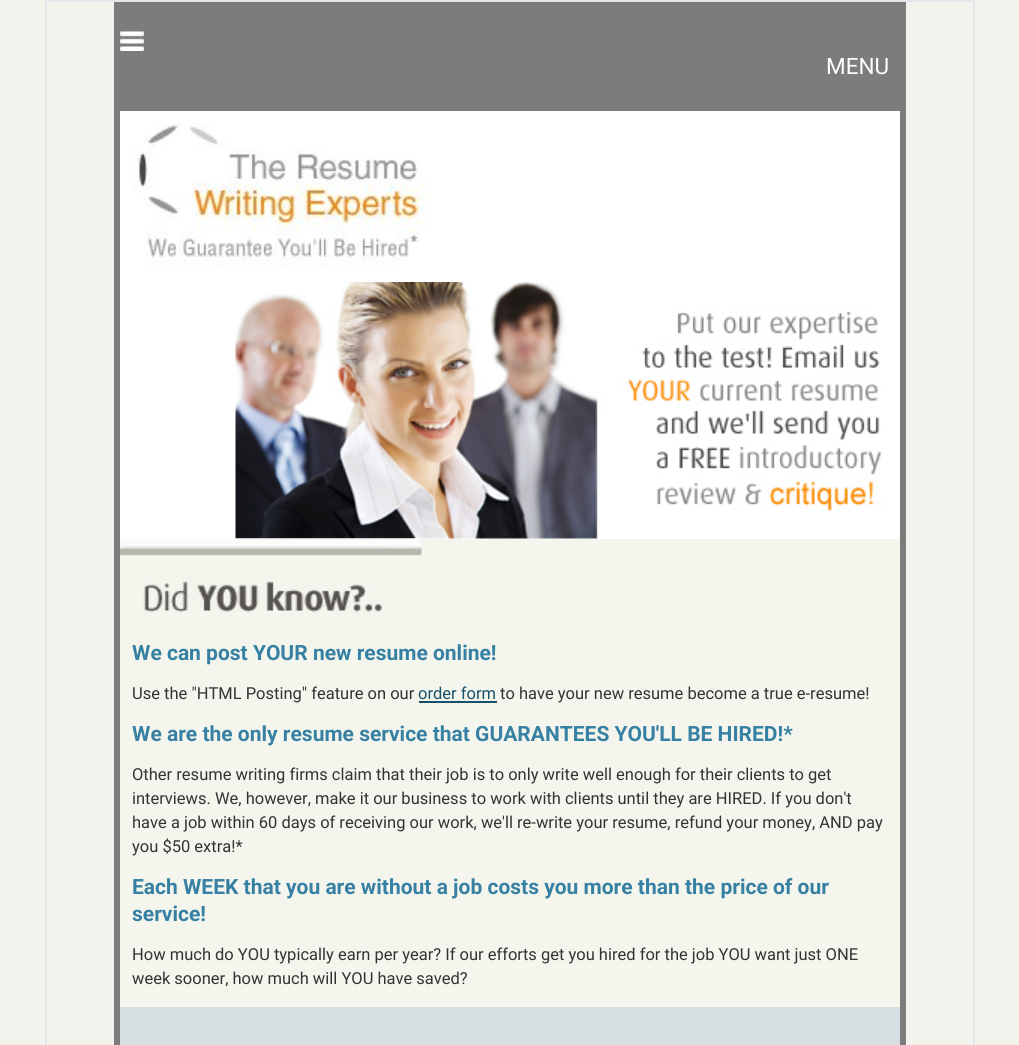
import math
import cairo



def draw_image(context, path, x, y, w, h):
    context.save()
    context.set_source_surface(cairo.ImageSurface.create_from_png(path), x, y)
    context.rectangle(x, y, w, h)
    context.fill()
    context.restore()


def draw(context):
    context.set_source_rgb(242 / 255, 243 / 255, 237 / 255)
    context.paint()
    context.rectangle(46, 1, 928, 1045)
    context.set_source_rgb(226 / 255, 231 / 255, 234 / 255)
    context.stroke()
    context.set_source_rgb(124 / 255, 124 / 255, 124 / 255)
    context.rectangle(114, 2, 792, 1043)
    context.fill()
    draw_image(context, "images/1.png", 120, 31, 24, 20)
    context.set_source_rgb(1, 1, 1)
    context.rectangle(120, 111, 780, 428)
    context.fill()
    draw_image(context, "images/2.png", 132, 123, 300, 144)
    draw_image(context, "images/3.png", 235, 282, 647, 257)
    context.set_source_rgb(214 / 255, 222 / 255, 225 / 255)
    context.rectangle(120, 1007, 780, 38)
    context.fill()
    context.set_source_rgb(244 / 255, 245 / 255, 237 / 255)
    context.rectangle(120, 539, 780, 468)
    context.fill()
    draw_image(context, "images/4.png", 120, 538, 302, 75)
    context.set_source_rgb(24 / 255, 80 / 255, 106 / 255)
    context.rectangle(419, 701, 78, 2)
    context.fill()
    context.select_font_face("Roboto")
    context.set_font_size(22.5)
    context.set_source_rgb(1, 1, 1)
    context.move_to(826, 74)
    context.show_text("MENU")
    context.select_font_face("Roboto", cairo.FontSlant.NORMAL, cairo.FontWeight.BOLD)
    context.set_font_size(21)
    context.set_source_rgb(54 / 255, 128 / 255, 163 / 255)
    context.move_to(132, 660)
    context.show_text("We can post YOUR new resume online!")
    context.select_font_face("Roboto")
    context.set_font_size(16.5)
    context.set_source_rgb(51 / 255, 51 / 255, 51 / 255)
    context.move_to(132, 699)
    context.show_text("Use the \"HTML Posting\" feature on our")
    context.set_source_rgb(24 / 255, 80 / 255, 106 / 255)
    context.move_to(418, 699)
    context.show_text("order form")
    context.set_source_rgb(51 / 255, 51 / 255, 51 / 255)
    context.move_to(500, 699)
    context.show_text("to have your new resume become a true e-resume!")
    context.select_font_face("Roboto", cairo.FontSlant.NORMAL, cairo.FontWeight.BOLD)
    context.set_font_size(21)
    context.set_source_rgb(54 / 255, 128 / 255, 163 / 255)
    context.move_to(132, 741)
    context.show_text("We are the only resume service that GUARANTEES YOU'LL BE HIRED!*")
    context.select_font_face("Roboto")
    context.set_font_size(16.5)
    context.set_source_rgb(51 / 255, 51 / 255, 51 / 255)
    context.move_to(132, 780)
    context.show_text("Other resume writing firms claim that their job is to only write well enough for their clients to get")
    context.move_to(132, 804)
    context.show_text("interviews. We, however, make it our business to work with clients until they are HIRED. If you don't")
    context.move_to(132, 828)
    context.show_text("have a job within 60 days of receiving our work, we'll re-write your resume, refund your money, AND pay")
    context.move_to(132, 852)
    context.show_text("you $50 extra!*")
    context.select_font_face("Roboto", cairo.FontSlant.NORMAL, cairo.FontWeight.BOLD)
    context.set_font_size(21)
    context.set_source_rgb(54 / 255, 128 / 255, 163 / 255)
    context.move_to(132, 894)
    context.show_text("Each WEEK that you are without a job costs you more than the price of our")
    context.move_to(132, 921)
    context.show_text("service!")
    context.select_font_face("Roboto")
    context.set_font_size(16.5)
    context.set_source_rgb(51 / 255, 51 / 255, 51 / 255)
    context.move_to(132, 960)
    context.show_text("How much do YOU typically earn per year? If our efforts get you hired for the job YOU want just ONE")
    context.move_to(132, 984)
    context.show_text("week sooner, how much will YOU have saved?")


surface = cairo.ImageSurface(cairo.Format.RGB24, 1019, 1045)
context = cairo.Context(surface)
options = cairo.FontOptions()
options.set_hint_metrics(cairo.HintMetrics.OFF)
options.set_hint_style(cairo.HintStyle.NONE)
context.set_font_options(options)
context.set_miter_limit(4)
draw(context)
surface.write_to_png("out.png")
